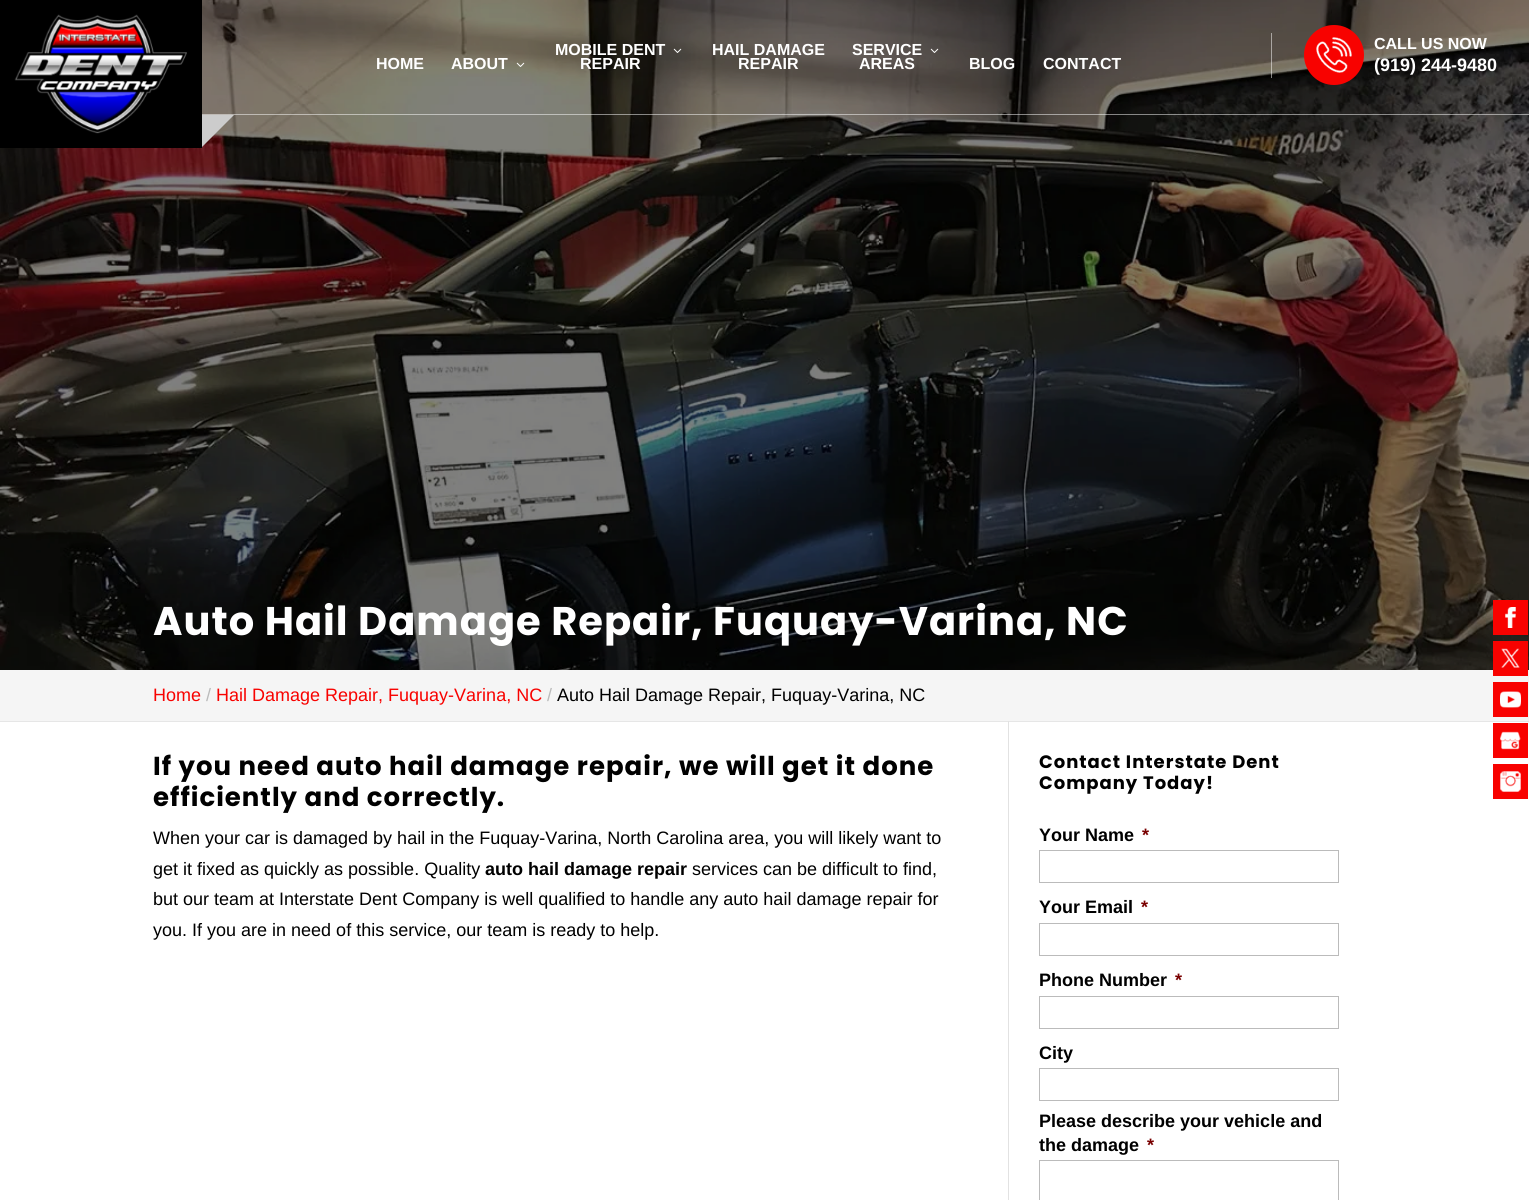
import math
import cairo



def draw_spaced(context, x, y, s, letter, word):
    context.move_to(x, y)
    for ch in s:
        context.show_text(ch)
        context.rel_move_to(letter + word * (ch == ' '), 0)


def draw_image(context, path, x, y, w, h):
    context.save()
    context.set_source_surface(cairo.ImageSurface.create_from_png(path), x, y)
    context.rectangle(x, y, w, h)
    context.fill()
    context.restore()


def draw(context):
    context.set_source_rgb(1, 1, 1)
    context.paint()
    draw_image(context, "images/11.png", 0, 0, 1529, 670)
    context.set_source_rgba(1, 1, 1, 0.5)
    context.rectangle(202, 114, 1327, 1)
    context.fill()
    context.set_source_rgb(0, 0, 0)
    context.rectangle(0, 0, 202, 148)
    context.fill()
    draw_image(context, "images/1.png", 14, 14, 173, 120)
    context.set_source_rgb(204 / 255, 204 / 255, 204 / 255)
    context.new_path()
    context.move_to(202, 115)
    context.line_to(202, 147)
    context.line_to(234, 115)
    context.close_path()
    context.fill()
    draw_image(context, "images/2.png", 516, 62, 9, 5)
    draw_image(context, "images/3.png", 673, 48, 9, 5)
    draw_image(context, "images/4.png", 930, 48, 9, 5)
    context.set_source_rgba(1, 1, 1, 0.5)
    context.rectangle(1271, 33, 1, 45)
    context.fill()
    context.set_source_rgb(248 / 255, 2 / 255, 0)
    context.arc(1334, 55, 30, 0, 2 * math.pi)
    context.fill()
    draw_image(context, "images/5.png", 1316, 37, 36, 36)
    context.rectangle(1493, 600, 35, 35)
    context.fill()
    draw_image(context, "images/6.png", 1505, 607, 11, 21)
    context.set_source_rgb(245 / 255, 245 / 255, 245 / 255)
    context.rectangle(0, 670, 1529, 51)
    context.fill()
    context.set_source_rgb(248 / 255, 2 / 255, 0)
    context.rectangle(1493, 641, 35, 35)
    context.fill()
    draw_image(context, "images/7.png", 1501, 648, 19, 20)
    context.rectangle(1493, 682, 35, 35)
    context.fill()
    draw_image(context, "images/8.png", 1500, 691, 21, 17)
    context.rectangle(1493, 723, 35, 35)
    context.fill()
    draw_image(context, "images/9.png", 1500, 731, 21, 19)
    context.rectangle(1493, 764, 35, 35)
    context.fill()
    draw_image(context, "images/10.png", 1500, 771, 21, 21)
    context.set_source_rgb(230 / 255, 230 / 255, 230 / 255)
    context.rectangle(0, 721, 1529, 1)
    context.fill()
    context.set_source_rgb(226 / 255, 226 / 255, 226 / 255)
    context.rectangle(1008, 721, 1, 479)
    context.fill()
    context.rectangle(1039.5, 850.5, 299, 32)
    context.set_source_rgb(187 / 255, 187 / 255, 187 / 255)
    context.set_line_width(1)
    context.stroke()
    context.rectangle(1039.5, 923.5, 299, 32)
    context.stroke()
    context.rectangle(1039.5, 996.5, 299, 32)
    context.stroke()
    context.rectangle(1039.5, 1068.5, 299, 32)
    context.stroke()
    context.rectangle(1039.5, 1160.5, 299, 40)
    context.stroke()
    context.select_font_face("Liberation Sans", cairo.FontSlant.NORMAL, cairo.FontWeight.BOLD)
    context.set_font_size(16)
    context.set_source_rgb(1, 1, 1)
    context.move_to(376, 69)
    context.show_text("HOME")
    context.move_to(451, 69)
    context.show_text("ABOUT")
    context.move_to(555, 55)
    context.show_text("MOBILE DENT")
    context.move_to(580, 69)
    context.show_text("REPAIR")
    context.move_to(712, 55)
    context.show_text("HAIL DAMAGE")
    context.move_to(738, 69)
    context.show_text("REPAIR")
    context.move_to(852, 55)
    context.show_text("SERVICE")
    context.move_to(859, 69)
    context.show_text("AREAS")
    context.move_to(969, 69)
    context.show_text("BLOG")
    context.move_to(1043, 69)
    context.show_text("CONTACT")
    context.move_to(1374, 49)
    context.show_text("CALL US NOW")
    context.set_font_size(18)
    context.move_to(1374, 71)
    context.show_text("(919) 244-9480")
    context.select_font_face("Poppins", cairo.FontSlant.NORMAL, cairo.FontWeight.BOLD)
    context.set_font_size(40)
    draw_spaced(context, 153, 635, "Auto Hail Damage Repair, Fuquay-Varina, NC", 1, 0)
    context.select_font_face("Liberation Sans")
    context.set_font_size(18)
    context.set_source_rgb(248 / 255, 2 / 255, 0)
    context.move_to(153, 701)
    context.show_text("Home")
    context.set_source_rgb(187 / 255, 187 / 255, 187 / 255)
    context.move_to(206, 701)
    context.show_text("/")
    context.set_source_rgb(248 / 255, 2 / 255, 0)
    context.move_to(216, 701)
    context.show_text("Hail Damage Repair, Fuquay-Varina, NC")
    context.set_source_rgb(187 / 255, 187 / 255, 187 / 255)
    context.move_to(547, 701)
    context.show_text("/")
    context.set_source_rgb(0, 0, 0)
    context.move_to(557, 701)
    context.show_text("Auto Hail Damage Repair, Fuquay-Varina, NC")
    context.select_font_face("Poppins", cairo.FontSlant.NORMAL, cairo.FontWeight.BOLD)
    context.set_font_size(26)
    draw_spaced(context, 153, 775, "If you need auto hail damage repair, we will get it done", 1, 0)
    draw_spaced(context, 153, 806, "efficiently and correctly.", 1, 0)
    context.select_font_face("Liberation Sans")
    context.set_font_size(18)
    context.move_to(153, 844)
    context.show_text("When your car is damaged by hail in the Fuquay-Varina, North Carolina area, you will likely want to")
    context.move_to(153, 875)
    context.show_text("get it fixed as quickly as possible. Quality")
    context.select_font_face("Liberation Sans", cairo.FontSlant.NORMAL, cairo.FontWeight.BOLD)
    context.move_to(485, 875)
    context.show_text("auto hail damage repair")
    context.select_font_face("Liberation Sans")
    context.move_to(692, 875)
    context.show_text("services can be difficult to find,")
    context.move_to(153, 905)
    context.show_text("but our team at Interstate Dent Company is well qualified to handle any auto hail damage repair for")
    context.move_to(153, 936)
    context.show_text("you. If you are in need of this service, our team is ready to help.")
    context.select_font_face("Poppins", cairo.FontSlant.NORMAL, cairo.FontWeight.BOLD)
    draw_spaced(context, 1039, 768, "Contact Interstate Dent", 1, 0)
    draw_spaced(context, 1039, 789, "Company Today!", 1, 0)
    context.select_font_face("Liberation Sans", cairo.FontSlant.NORMAL, cairo.FontWeight.BOLD)
    context.move_to(1039, 841)
    context.show_text("Your Name")
    context.set_source_rgb(121 / 255, 0, 0)
    context.move_to(1142, 841)
    context.show_text("*")
    context.set_source_rgb(0, 0, 0)
    context.move_to(1039, 913)
    context.show_text("Your Email")
    context.set_source_rgb(121 / 255, 0, 0)
    context.move_to(1141, 913)
    context.show_text("*")
    context.set_source_rgb(0, 0, 0)
    context.move_to(1039, 986)
    context.show_text("Phone Number")
    context.set_source_rgb(121 / 255, 0, 0)
    context.move_to(1175, 986)
    context.show_text("*")
    context.set_source_rgb(0, 0, 0)
    context.move_to(1039, 1059)
    context.show_text("City")
    context.move_to(1039, 1127)
    context.show_text("Please describe your vehicle and")
    context.move_to(1039, 1151)
    context.show_text("the damage")
    context.set_source_rgb(121 / 255, 0, 0)
    context.move_to(1147, 1151)
    context.show_text("*")


surface = cairo.ImageSurface(cairo.Format.RGB24, 1529, 1200)
context = cairo.Context(surface)
options = cairo.FontOptions()
options.set_hint_metrics(cairo.HintMetrics.OFF)
options.set_hint_style(cairo.HintStyle.NONE)
context.set_font_options(options)
context.set_miter_limit(4)
draw(context)
surface.write_to_png("out.png")
